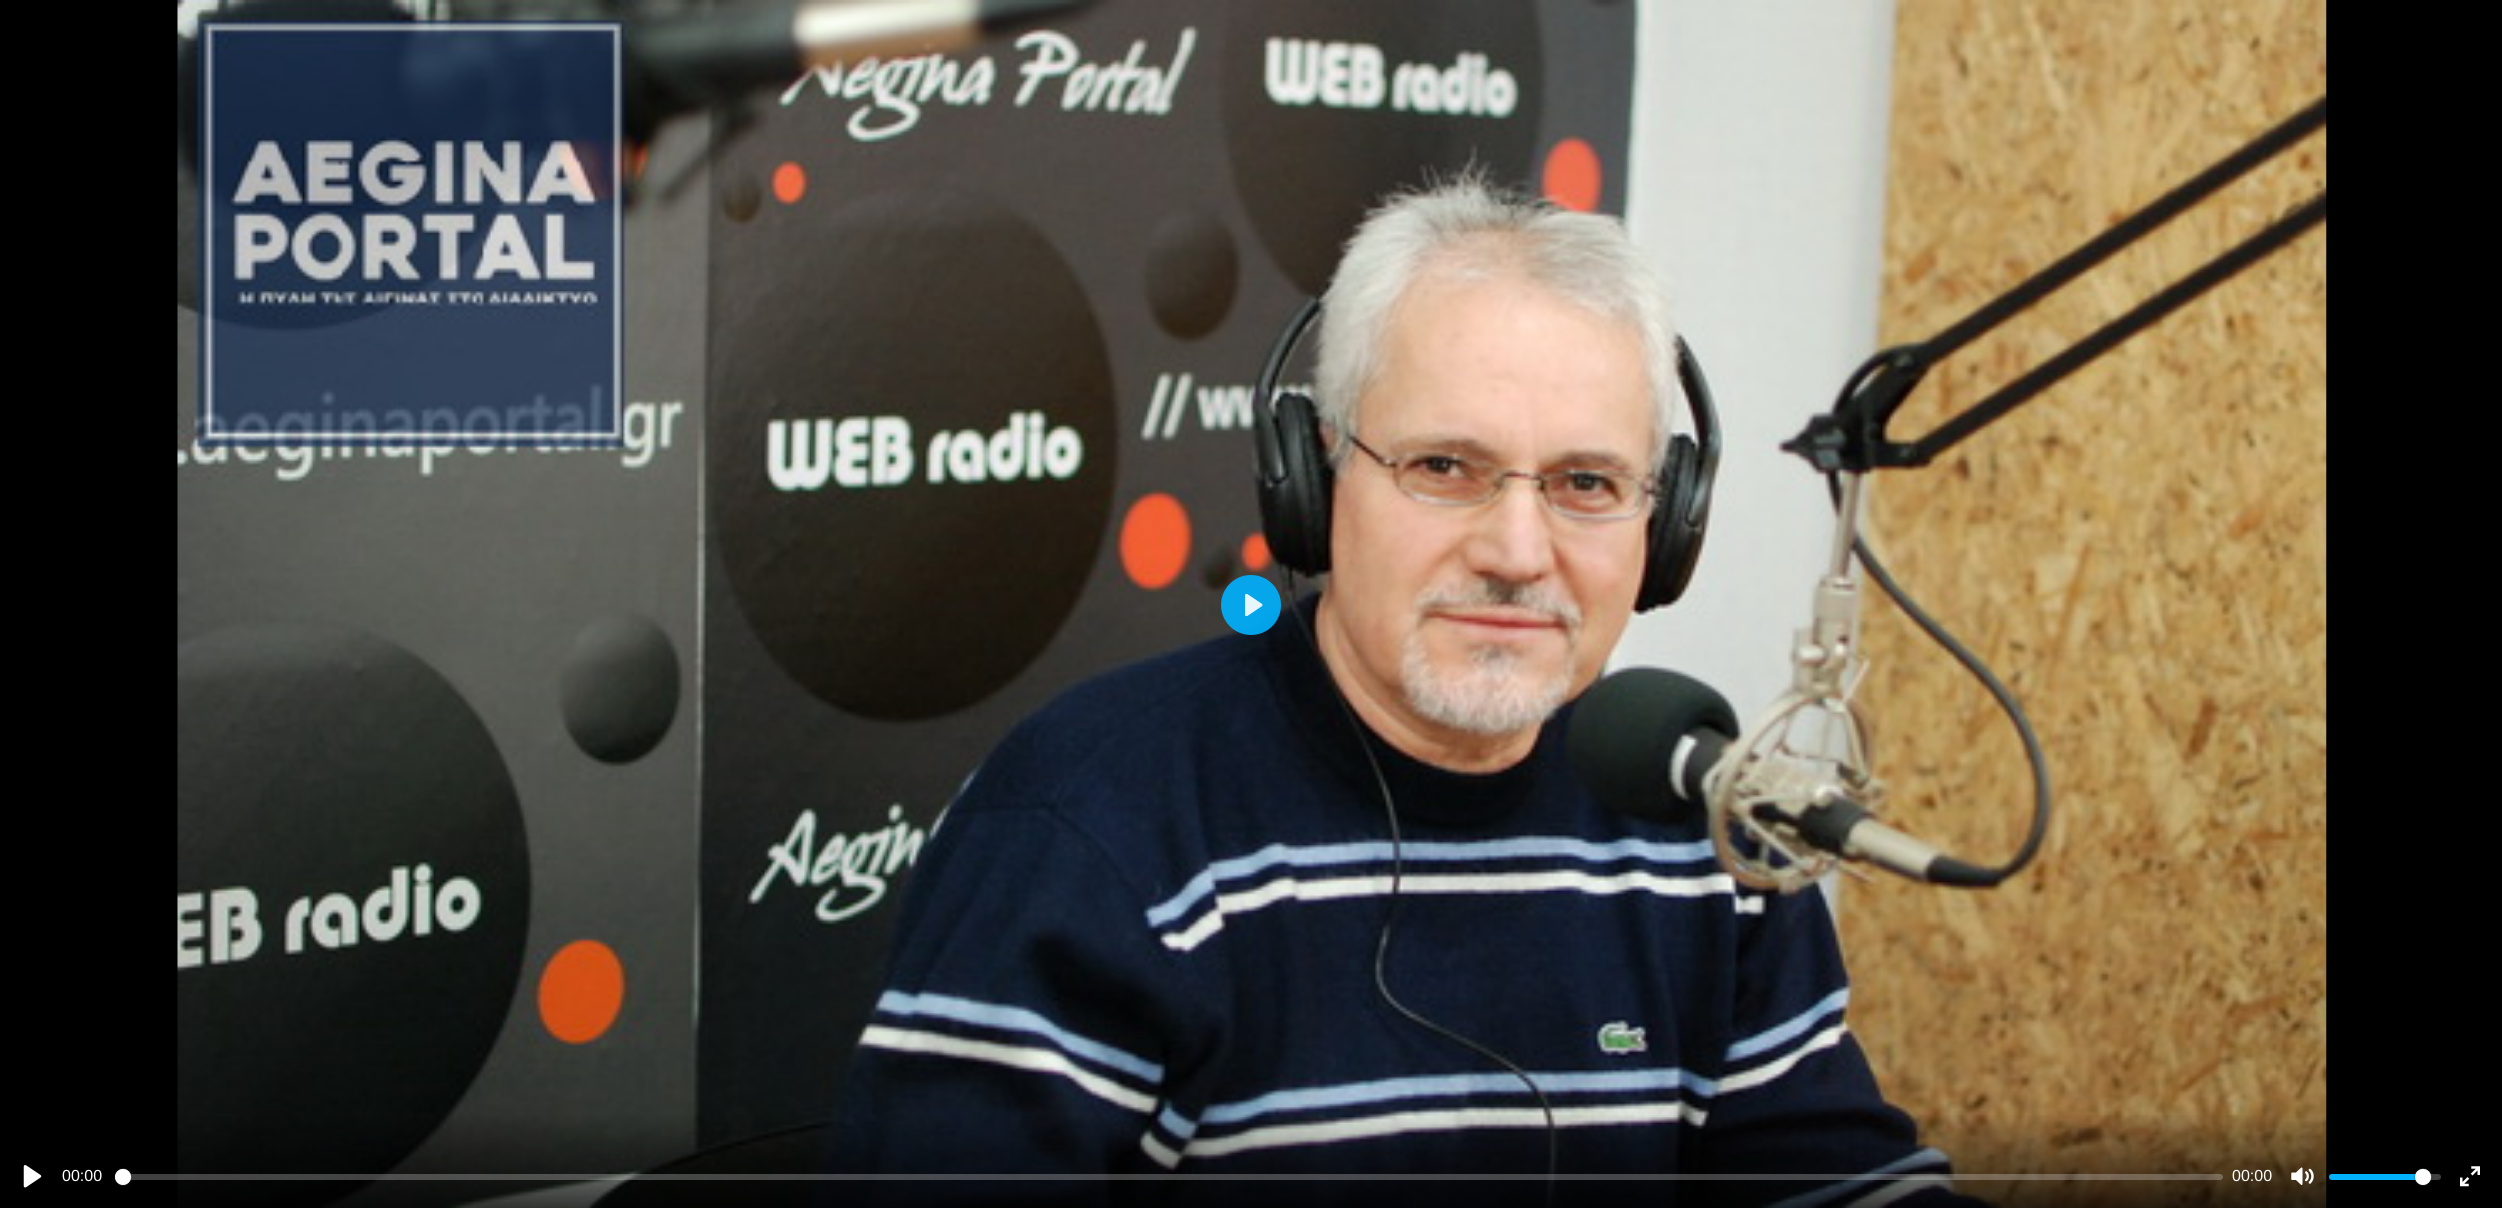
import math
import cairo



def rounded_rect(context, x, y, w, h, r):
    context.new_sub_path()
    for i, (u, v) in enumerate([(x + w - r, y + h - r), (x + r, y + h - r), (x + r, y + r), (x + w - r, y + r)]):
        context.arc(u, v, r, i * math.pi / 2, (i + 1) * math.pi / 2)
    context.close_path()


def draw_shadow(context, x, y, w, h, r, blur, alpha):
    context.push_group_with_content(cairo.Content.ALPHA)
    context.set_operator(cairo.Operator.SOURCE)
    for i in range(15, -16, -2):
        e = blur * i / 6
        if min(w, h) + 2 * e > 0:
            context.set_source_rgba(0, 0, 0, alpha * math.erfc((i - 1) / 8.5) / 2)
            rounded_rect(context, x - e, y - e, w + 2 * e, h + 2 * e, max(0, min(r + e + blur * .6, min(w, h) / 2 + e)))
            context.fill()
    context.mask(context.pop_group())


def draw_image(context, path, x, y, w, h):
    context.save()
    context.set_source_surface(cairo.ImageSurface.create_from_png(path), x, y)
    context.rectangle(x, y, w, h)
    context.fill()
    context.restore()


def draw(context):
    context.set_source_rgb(0, 0, 0)
    context.paint()
    draw_image(context, "images/1.png", 114, 0, 2318, 1208)
    context.set_source_rgba(0, 178 / 255, 1, 0.9)
    context.arc(1251, 605, 30, 0, 2 * math.pi)
    context.fill()
    draw_image(context, "images/2.png", 1245, 594, 18, 22)
    gradient = cairo.LinearGradient(1251, 1112, 1251, 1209)
    gradient.add_color_stop_rgba(0, 0, 0, 0, 0)
    gradient.add_color_stop_rgba(1, 0, 0, 0, 0.75)
    context.set_source(gradient)
    context.rectangle(114, 1115, 2318, 93)
    context.fill()
    draw_image(context, "images/3.png", 23, 1165, 19, 23)
    context.set_source_rgba(1, 1, 1, 0.25)
    rounded_rect(context, 115, 1174, 2108, 6, 3)
    context.fill()
    rounded_rect(context, 114.5, 1168.5, 18, 17, 8.5)
    context.set_source_rgba(35 / 255, 40 / 255, 47 / 255, 0.2)
    context.set_line_width(1)
    context.stroke()
    context.set_source_rgb(35 / 255, 40 / 255, 47 / 255)
    draw_shadow(context, 115, 1170, 16, 16, 8, 0.5, 0.15)
    context.set_source_rgb(0, 0, 0)
    context.new_path()
    context.move_to(119, 1164.5)
    context.line_to(127, 1164.5)
    context.line_to(123, 1168.5)
    context.close_path()
    context.fill()
    context.set_source_rgb(1, 1, 1)
    context.arc(123, 1177, 8, 0, 2 * math.pi)
    context.fill()
    draw_image(context, "images/4.png", 2291, 1167, 23, 18)
    context.set_source_rgba(1, 1, 1, 0.25)
    rounded_rect(context, 2329, 1174, 112, 6, 3)
    context.fill()
    context.set_source_rgb(0, 178 / 255, 1)
    context.new_path()
    context.move_to(2332, 1174)
    context.line_to(2430, 1174)
    context.line_to(2430, 1180)
    context.line_to(2332, 1180)
    context.curve_to(2330.5, 1180, 2329, 1178.5, 2329, 1177)
    context.curve_to(2329, 1175.5, 2330.5, 1174, 2332, 1174)
    context.close_path()
    context.fill()
    rounded_rect(context, 2414.5, 1168.5, 18, 17, 8.5)
    context.set_source_rgba(35 / 255, 40 / 255, 47 / 255, 0.2)
    context.stroke()
    context.set_source_rgb(35 / 255, 40 / 255, 47 / 255)
    draw_shadow(context, 2415, 1170, 16, 16, 8, 0.5, 0.15)
    context.set_source_rgb(1, 1, 1)
    context.arc(2423, 1177, 8, 0, 2 * math.pi)
    context.fill()
    draw_image(context, "images/5.png", 2460, 1166, 20, 21)
    context.select_font_face("Liberation Sans")
    context.set_font_size(16)
    context.move_to(62, 1181)
    context.show_text("00:00")
    context.move_to(2232, 1181)
    context.show_text("00:00")


surface = cairo.ImageSurface(cairo.Format.RGB24, 2502, 1208)
context = cairo.Context(surface)
options = cairo.FontOptions()
options.set_hint_metrics(cairo.HintMetrics.OFF)
options.set_hint_style(cairo.HintStyle.NONE)
context.set_font_options(options)
context.set_miter_limit(4)
draw(context)
surface.write_to_png("out.png")
